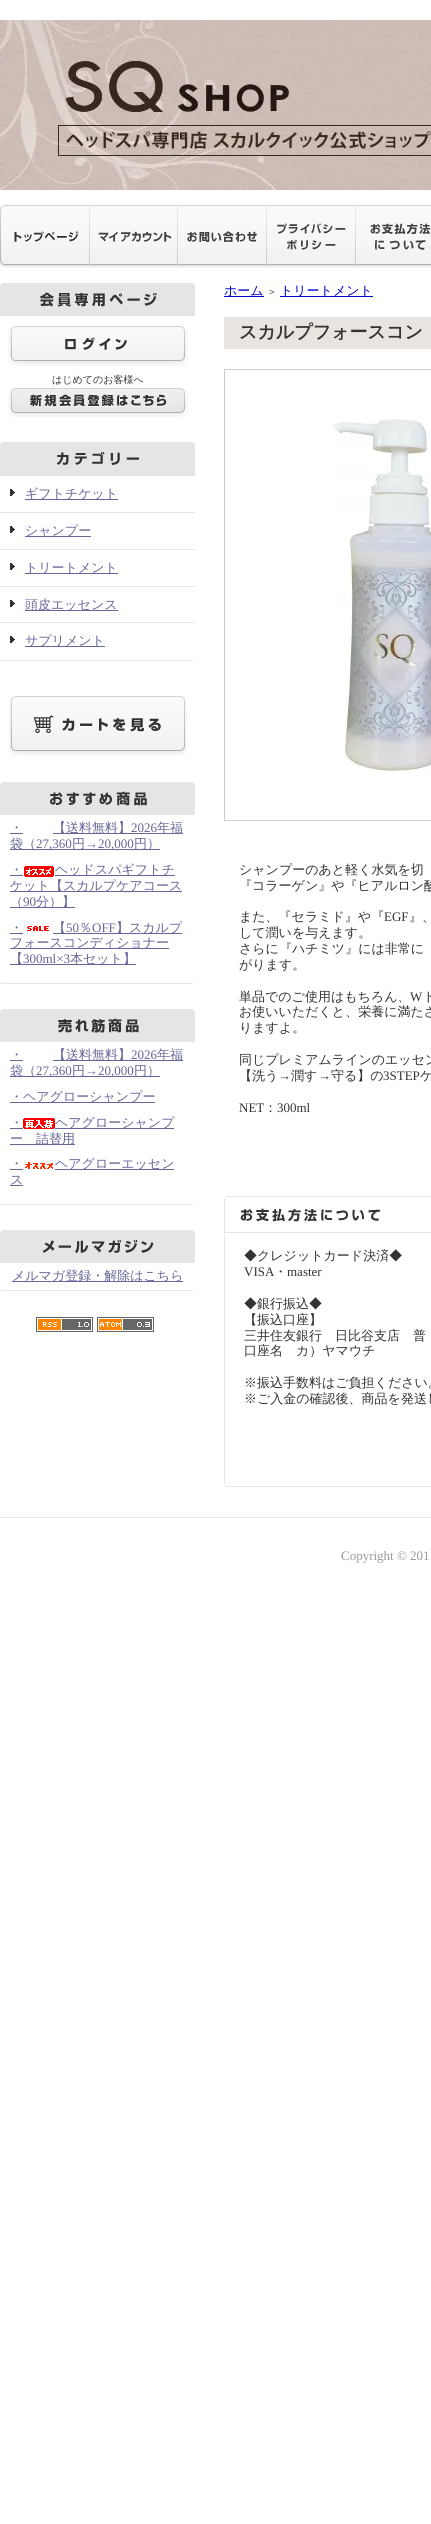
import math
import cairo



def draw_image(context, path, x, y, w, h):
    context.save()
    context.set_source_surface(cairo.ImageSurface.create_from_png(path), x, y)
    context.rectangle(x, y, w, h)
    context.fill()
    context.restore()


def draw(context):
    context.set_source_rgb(1, 1, 1)
    context.paint()
    draw_image(context, "images/1.png", 0, 20, 431, 170)
    draw_image(context, "images/2.png", 0, 205, 90, 63)
    draw_image(context, "images/3.png", 90, 205, 88, 63)
    draw_image(context, "images/4.png", 178, 205, 89, 63)
    draw_image(context, "images/5.png", 267, 205, 89, 63)
    draw_image(context, "images/6.png", 356, 205, 75, 63)
    draw_image(context, "images/7.png", 0, 283, 195, 33)
    draw_image(context, "images/8.png", 8, 326, 180, 40)
    draw_image(context, "images/9.png", 8, 388, 180, 29)
    draw_image(context, "images/10.png", 0, 442, 195, 33)
    context.set_source_rgb(230 / 255, 230 / 255, 230 / 255)
    context.rectangle(0, 475, 195, 1)
    context.fill()
    draw_image(context, "images/11.png", 10, 489, 5, 7)
    context.set_source_rgb(102 / 255, 102 / 255, 153 / 255)
    context.rectangle(25, 499, 93, 1)
    context.fill()
    context.set_source_rgb(230 / 255, 230 / 255, 230 / 255)
    context.rectangle(0, 512, 195, 1)
    context.fill()
    draw_image(context, "images/11.png", 10, 526, 5, 7)
    context.set_source_rgb(102 / 255, 102 / 255, 153 / 255)
    context.rectangle(25, 536, 66, 1)
    context.fill()
    context.set_source_rgb(230 / 255, 230 / 255, 230 / 255)
    context.rectangle(0, 549, 195, 1)
    context.fill()
    draw_image(context, "images/11.png", 10, 563, 5, 7)
    context.set_source_rgb(102 / 255, 102 / 255, 153 / 255)
    context.rectangle(25, 573, 93, 1)
    context.fill()
    context.set_source_rgb(230 / 255, 230 / 255, 230 / 255)
    context.rectangle(0, 586, 195, 1)
    context.fill()
    draw_image(context, "images/11.png", 10, 600, 5, 7)
    context.set_source_rgb(102 / 255, 102 / 255, 153 / 255)
    context.rectangle(25, 610, 93, 1)
    context.fill()
    context.set_source_rgb(230 / 255, 230 / 255, 230 / 255)
    context.rectangle(0, 622, 195, 1)
    context.fill()
    draw_image(context, "images/11.png", 10, 636, 5, 7)
    context.set_source_rgb(102 / 255, 102 / 255, 153 / 255)
    context.rectangle(25, 646, 80, 1)
    context.fill()
    draw_image(context, "images/12.png", 0, 659, 193, 2)
    draw_image(context, "images/13.png", 9, 696, 178, 60)
    draw_image(context, "images/14.png", 0, 782, 195, 33)
    context.rectangle(10, 833, 13, 1)
    context.fill()
    context.rectangle(53, 833, 130, 1)
    context.fill()
    context.rectangle(10, 849, 150, 1)
    context.fill()
    context.rectangle(10, 875, 13, 1)
    context.fill()
    draw_image(context, "images/15.png", 24, 866, 30, 11)
    context.rectangle(55, 875, 120, 1)
    context.fill()
    context.rectangle(10, 891, 172, 1)
    context.fill()
    context.rectangle(10, 907, 65, 1)
    context.fill()
    context.rectangle(10, 933, 13, 1)
    context.fill()
    draw_image(context, "images/16.png", 27, 926, 22, 5)
    context.rectangle(53, 933, 129, 1)
    context.fill()
    context.rectangle(10, 948, 159, 1)
    context.fill()
    context.rectangle(10, 964, 126, 1)
    context.fill()
    draw_image(context, "images/12.png", 0, 982, 193, 2)
    draw_image(context, "images/17.png", 0, 1009, 195, 33)
    context.rectangle(10, 1060, 13, 1)
    context.fill()
    context.rectangle(53, 1060, 130, 1)
    context.fill()
    context.rectangle(10, 1076, 150, 1)
    context.fill()
    context.rectangle(10, 1102, 145, 1)
    context.fill()
    context.rectangle(10, 1128, 13, 1)
    context.fill()
    draw_image(context, "images/18.png", 23, 1118, 32, 11)
    context.rectangle(55, 1128, 119, 1)
    context.fill()
    context.rectangle(10, 1144, 65, 1)
    context.fill()
    context.rectangle(10, 1169, 13, 1)
    context.fill()
    draw_image(context, "images/19.png", 25, 1162, 28, 7)
    context.rectangle(55, 1169, 119, 1)
    context.fill()
    context.rectangle(10, 1185, 13, 1)
    context.fill()
    draw_image(context, "images/12.png", 0, 1203, 193, 2)
    draw_image(context, "images/20.png", 0, 1230, 195, 33)
    context.rectangle(12, 1281, 171, 1)
    context.fill()
    draw_image(context, "images/12.png", 0, 1289, 193, 2)
    draw_image(context, "images/21.png", 36, 1317, 57, 15)
    draw_image(context, "images/22.png", 97, 1317, 57, 15)
    context.set_source_rgb(0, 0, 204 / 255)
    context.rectangle(224, 296, 40, 1)
    context.fill()
    context.rectangle(280, 296, 93, 1)
    context.fill()
    context.set_source_rgb(234 / 255, 228 / 255, 225 / 255)
    context.rectangle(224, 317, 207, 32)
    context.fill()
    context.rectangle(224.5, 369.5, 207, 451)
    context.set_source_rgb(204 / 255, 204 / 255, 204 / 255)
    context.set_line_width(1)
    context.stroke()
    draw_image(context, "images/23.png", 333, 418, 98, 354)
    draw_image(context, "images/24.png", 224, 1196, 207, 37)
    context.set_source_rgb(231 / 255, 231 / 255, 231 / 255)
    context.rectangle(224, 1233, 1, 252)
    context.fill()
    draw_image(context, "images/25.png", 225, 1485, 206, 2)
    context.set_source_rgb(230 / 255, 230 / 255, 230 / 255)
    context.rectangle(0, 1517, 431, 1)
    context.fill()
    context.select_font_face("WenQuanYi Zen Hei Medium")
    context.set_font_size(10)
    context.set_source_rgb(51 / 255, 51 / 255, 51 / 255)
    context.move_to(52, 383)
    context.show_text("はじめてのお客様へ")
    context.set_font_size(13)
    context.set_source_rgb(102 / 255, 102 / 255, 153 / 255)
    context.move_to(25, 498)
    context.show_text("ギフトチケット")
    context.move_to(25, 535)
    context.show_text("シャンプー")
    context.move_to(25, 572)
    context.show_text("トリートメント")
    context.move_to(25, 609)
    context.show_text("頭皮エッセンス")
    context.move_to(25, 645)
    context.show_text("サプリメント")
    context.move_to(10, 832)
    context.show_text("・")
    context.move_to(53, 832)
    context.show_text("【送料無料】")
    context.select_font_face("Liberation Serif")
    context.move_to(131, 832)
    context.show_text("2026")
    context.select_font_face("WenQuanYi Zen Hei Medium")
    context.move_to(157, 832)
    context.show_text("年福")
    context.move_to(10, 848)
    context.show_text("袋（")
    context.select_font_face("Liberation Serif")
    context.move_to(36, 848)
    context.show_text("27,360")
    context.select_font_face("WenQuanYi Zen Hei Medium")
    context.move_to(72, 848)
    context.show_text("円")
    context.select_font_face("Liberation Serif")
    context.move_to(85, 848)
    context.show_text("→20,000")
    context.select_font_face("WenQuanYi Zen Hei Medium")
    context.move_to(134, 848)
    context.show_text("円）")
    context.move_to(10, 874)
    context.show_text("・")
    context.move_to(55, 874)
    context.show_text("ヘッドスパギフトチ")
    context.move_to(10, 890)
    context.show_text("ケット【スカルプケアコース")
    context.move_to(10, 906)
    context.show_text("（")
    context.select_font_face("Liberation Serif")
    context.move_to(23, 906)
    context.show_text("90")
    context.select_font_face("WenQuanYi Zen Hei Medium")
    context.move_to(36, 906)
    context.show_text("分）】")
    context.move_to(10, 932)
    context.show_text("・")
    context.move_to(53, 932)
    context.show_text("【")
    context.select_font_face("Liberation Serif")
    context.move_to(66, 932)
    context.show_text("50")
    context.select_font_face("WenQuanYi Zen Hei Medium")
    context.move_to(79, 932)
    context.show_text("％")
    context.select_font_face("Liberation Serif")
    context.move_to(92, 932)
    context.show_text("OFF")
    context.select_font_face("WenQuanYi Zen Hei Medium")
    context.move_to(116, 932)
    context.show_text("】スカルプ")
    context.move_to(10, 947)
    context.show_text("フォースコンディショナー")
    context.move_to(10, 963)
    context.show_text("【")
    context.select_font_face("Liberation Serif")
    context.move_to(23, 963)
    context.show_text("300ml×3")
    context.select_font_face("WenQuanYi Zen Hei Medium")
    context.move_to(70, 963)
    context.show_text("本セット】")
    context.move_to(10, 1059)
    context.show_text("・")
    context.move_to(53, 1059)
    context.show_text("【送料無料】")
    context.select_font_face("Liberation Serif")
    context.move_to(131, 1059)
    context.show_text("2026")
    context.select_font_face("WenQuanYi Zen Hei Medium")
    context.move_to(157, 1059)
    context.show_text("年福")
    context.move_to(10, 1075)
    context.show_text("袋（")
    context.select_font_face("Liberation Serif")
    context.move_to(36, 1075)
    context.show_text("27,360")
    context.select_font_face("WenQuanYi Zen Hei Medium")
    context.move_to(72, 1075)
    context.show_text("円")
    context.select_font_face("Liberation Serif")
    context.move_to(85, 1075)
    context.show_text("→20,000")
    context.select_font_face("WenQuanYi Zen Hei Medium")
    context.move_to(134, 1075)
    context.show_text("円）")
    context.move_to(10, 1101)
    context.show_text("・ヘアグローシャンプー")
    context.move_to(10, 1127)
    context.show_text("・")
    context.move_to(55, 1127)
    context.show_text("ヘアグローシャンプ")
    context.move_to(10, 1143)
    context.show_text("ー　詰替用")
    context.move_to(10, 1168)
    context.show_text("・")
    context.move_to(55, 1168)
    context.show_text("ヘアグローエッセン")
    context.move_to(10, 1184)
    context.show_text("ス")
    context.move_to(12, 1280)
    context.show_text("メルマガ登録・解除はこちら")
    context.set_source_rgb(0, 0, 204 / 255)
    context.move_to(224, 295)
    context.show_text("ホーム")
    context.set_font_size(10)
    context.set_source_rgb(51 / 255, 51 / 255, 51 / 255)
    context.move_to(267, 295)
    context.show_text("＞")
    context.set_font_size(13)
    context.set_source_rgb(0, 0, 204 / 255)
    context.move_to(280, 295)
    context.show_text("トリートメント")
    context.select_font_face("WenQuanYi Zen Hei", cairo.FontSlant.NORMAL, cairo.FontWeight.BOLD)
    context.set_font_size(18)
    context.set_source_rgb(51 / 255, 51 / 255, 51 / 255)
    context.move_to(239, 338)
    context.show_text("スカルプフォースコン")
    context.select_font_face("WenQuanYi Zen Hei Medium")
    context.set_font_size(13)
    context.move_to(239, 874)
    context.show_text("シャンプーのあと軽く水気を切")
    context.move_to(239, 890)
    context.show_text("『コラーゲン』や『ヒアルロン酸")
    context.move_to(239, 921)
    context.show_text("また、『セラミド』や『")
    context.select_font_face("Liberation Serif")
    context.move_to(384, 921)
    context.show_text("EGF")
    context.select_font_face("WenQuanYi Zen Hei Medium")
    context.move_to(409, 921)
    context.show_text("』、")
    context.move_to(239, 937)
    context.show_text("して潤いを与えます。")
    context.move_to(239, 953)
    context.show_text("さらに『ハチミツ』には非常に")
    context.move_to(239, 969)
    context.show_text("がります。")
    context.move_to(239, 1001)
    context.show_text("単品でのご使用はもちろん、")
    context.select_font_face("Liberation Serif")
    context.move_to(410, 1001)
    context.show_text("W")
    context.select_font_face("WenQuanYi Zen Hei Medium")
    context.move_to(423, 1001)
    context.show_text("ト")
    context.move_to(239, 1016)
    context.show_text("お使いいただくと、栄養に満たさ")
    context.move_to(239, 1032)
    context.show_text("りますよ。")
    context.move_to(239, 1064)
    context.show_text("同じプレミアムラインのエッセン")
    context.move_to(239, 1080)
    context.show_text("【洗う")
    context.select_font_face("Liberation Serif")
    context.move_to(278, 1080)
    context.show_text("→")
    context.select_font_face("WenQuanYi Zen Hei Medium")
    context.move_to(291, 1080)
    context.show_text("潤す")
    context.select_font_face("Liberation Serif")
    context.move_to(318, 1080)
    context.show_text("→")
    context.select_font_face("WenQuanYi Zen Hei Medium")
    context.move_to(331, 1080)
    context.show_text("守る】の")
    context.select_font_face("Liberation Serif")
    context.move_to(383, 1080)
    context.show_text("3STEP")
    context.select_font_face("WenQuanYi Zen Hei Medium")
    context.move_to(420, 1080)
    context.show_text("ケ")
    context.select_font_face("Liberation Serif")
    context.move_to(239, 1112)
    context.show_text("NET")
    context.select_font_face("WenQuanYi Zen Hei Medium")
    context.move_to(264, 1112)
    context.show_text("：")
    context.select_font_face("Liberation Serif")
    context.move_to(277, 1112)
    context.show_text("300ml")
    context.select_font_face("WenQuanYi Zen Hei Medium")
    context.move_to(244, 1260)
    context.show_text("◆クレジットカード決済◆")
    context.select_font_face("Liberation Serif")
    context.move_to(244, 1276)
    context.show_text("VISA")
    context.select_font_face("WenQuanYi Zen Hei Medium")
    context.move_to(274, 1276)
    context.show_text("・")
    context.select_font_face("Liberation Serif")
    context.move_to(287, 1276)
    context.show_text("master")
    context.select_font_face("WenQuanYi Zen Hei Medium")
    context.move_to(244, 1308)
    context.show_text("◆銀行振込◆")
    context.move_to(244, 1324)
    context.show_text("【振込口座】")
    context.move_to(244, 1340)
    context.show_text("三井住友銀行　日比谷支店　普")
    context.move_to(244, 1355)
    context.show_text("口座名　カ）ヤマウチ")
    context.move_to(244, 1387)
    context.show_text("※振込手数料はご負担ください。")
    context.move_to(244, 1403)
    context.show_text("※ご入金の確認後、商品を発送し")
    context.select_font_face("Liberation Serif")
    context.set_source_rgb(153 / 255, 153 / 255, 153 / 255)
    context.move_to(341, 1560)
    context.show_text("Copyright © 201")


surface = cairo.ImageSurface(cairo.Format.RGB24, 431, 2524)
context = cairo.Context(surface)
options = cairo.FontOptions()
options.set_hint_metrics(cairo.HintMetrics.OFF)
options.set_hint_style(cairo.HintStyle.NONE)
context.set_font_options(options)
context.set_miter_limit(4)
draw(context)
surface.write_to_png("out.png")
